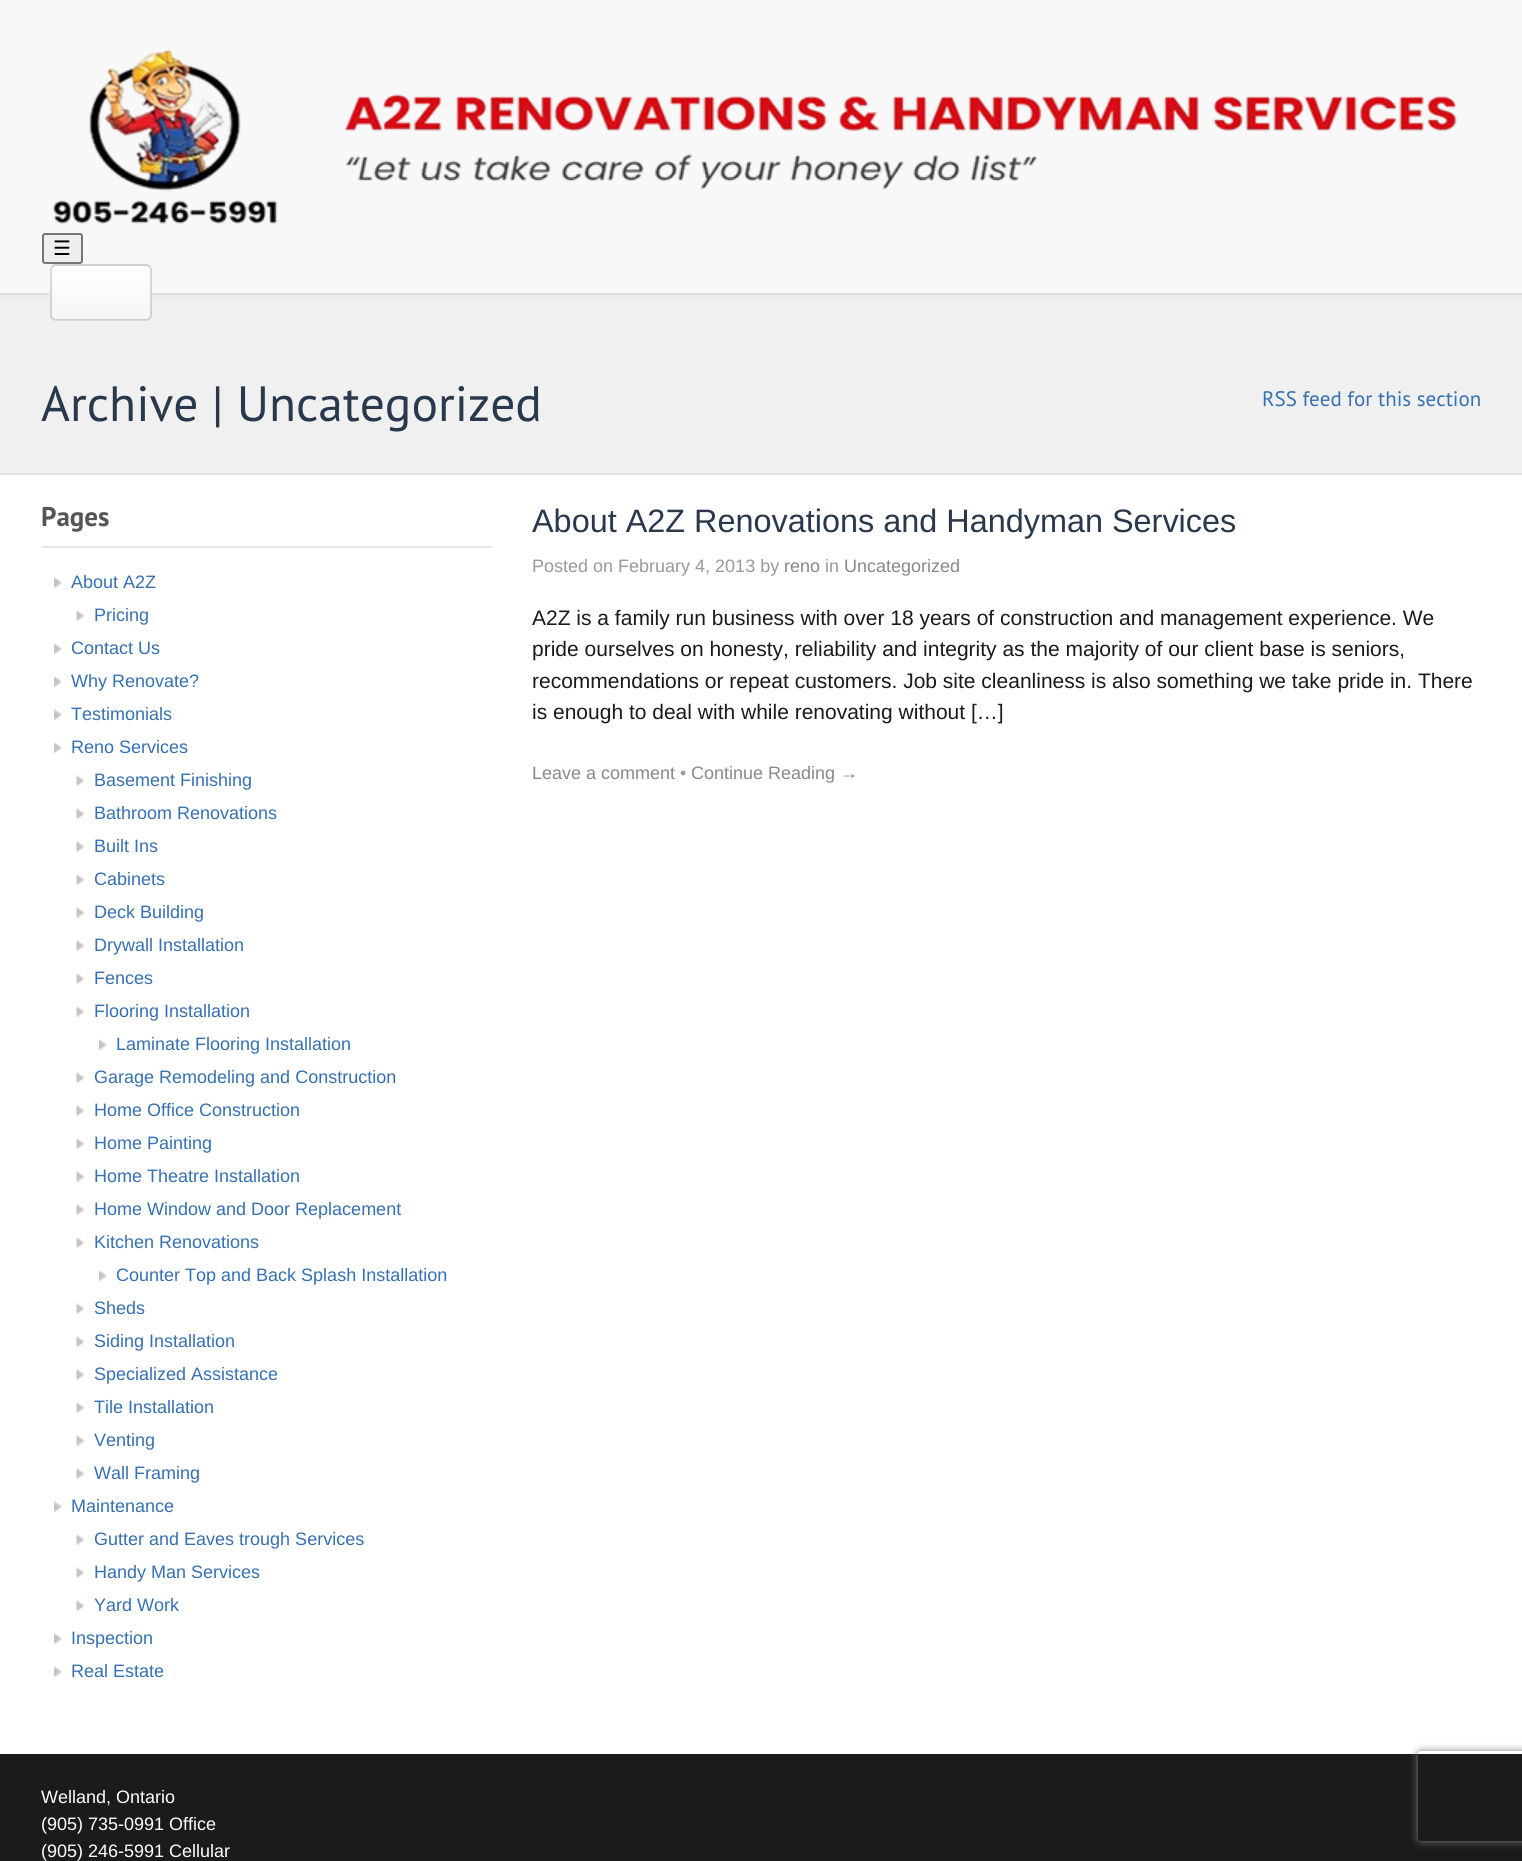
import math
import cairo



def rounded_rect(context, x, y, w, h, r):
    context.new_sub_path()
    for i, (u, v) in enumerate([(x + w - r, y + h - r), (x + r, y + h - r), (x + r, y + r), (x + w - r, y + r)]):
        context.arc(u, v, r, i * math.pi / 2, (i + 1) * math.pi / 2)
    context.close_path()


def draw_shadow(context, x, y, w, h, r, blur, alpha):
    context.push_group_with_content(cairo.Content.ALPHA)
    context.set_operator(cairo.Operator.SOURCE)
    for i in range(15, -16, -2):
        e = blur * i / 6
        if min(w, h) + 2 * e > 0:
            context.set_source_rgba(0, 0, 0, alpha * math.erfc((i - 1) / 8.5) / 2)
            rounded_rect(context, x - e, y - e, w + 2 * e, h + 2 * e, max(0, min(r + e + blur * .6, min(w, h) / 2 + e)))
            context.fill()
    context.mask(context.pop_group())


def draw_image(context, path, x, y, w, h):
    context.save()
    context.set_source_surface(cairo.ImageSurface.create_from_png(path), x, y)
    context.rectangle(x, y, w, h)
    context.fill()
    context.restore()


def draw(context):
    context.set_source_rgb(1, 1, 1)
    context.paint()
    context.set_source_rgb(248 / 255, 248 / 255, 248 / 255)
    context.rectangle(0, 0, 1522, 293)
    context.fill()
    context.set_source_rgb(224 / 255, 224 / 255, 224 / 255)
    context.rectangle(0, 293, 1522, 2)
    context.fill()
    draw_image(context, "images/1.png", 53, 49, 1404, 175)
    context.set_source_rgb(239 / 255, 239 / 255, 239 / 255)
    rounded_rect(context, 43, 234, 39, 29, 2)
    context.fill_preserve()
    context.set_source_rgb(118 / 255, 118 / 255, 118 / 255)
    context.stroke()
    context.save()
    rounded_rect(context, 50, 264, 102, 57, 6)
    context.clip()
    gradient = cairo.LinearGradient(51, 212, 51, 266)
    gradient.add_color_stop_rgba(0, 1, 1, 1, 1)
    gradient.add_color_stop_rgba(1, 245 / 255, 245 / 255, 245 / 255, 1)
    context.set_source(gradient)
    context.rectangle(50, 264, 102, 2)
    context.fill()
    context.restore()
    context.set_source_rgb(240 / 255, 240 / 255, 240 / 255)
    context.rectangle(0, 299, 1522, 174)
    context.fill()
    context.set_source_rgb(235 / 255, 235 / 255, 235 / 255)
    context.rectangle(0, 295, 1522, 4)
    context.fill()
    context.save()
    rounded_rect(context, 50, 264, 102, 57, 6)
    context.clip()
    gradient = cairo.LinearGradient(51, 266, 51, 320)
    gradient.add_color_stop_rgba(0, 1, 1, 1, 1)
    gradient.add_color_stop_rgba(1, 245 / 255, 245 / 255, 245 / 255, 1)
    context.set_source(gradient)
    context.rectangle(50, 266, 102, 54)
    context.fill()
    gradient = cairo.LinearGradient(51, 320, 51, 374)
    gradient.add_color_stop_rgba(0, 1, 1, 1, 1)
    gradient.add_color_stop_rgba(1, 245 / 255, 245 / 255, 245 / 255, 1)
    context.set_source(gradient)
    context.rectangle(50, 320, 102, 1)
    context.fill()
    context.restore()
    rounded_rect(context, 51, 265, 100, 55, 5)
    context.set_source_rgba(0, 0, 0, 0.15)
    context.stroke()
    context.set_source_rgb(225 / 255, 225 / 255, 225 / 255)
    context.rectangle(0, 473, 1522, 2)
    context.fill()
    context.set_source_rgb(230 / 255, 230 / 255, 230 / 255)
    context.rectangle(42, 546, 450, 2)
    context.fill()
    draw_image(context, "images/2.png", 54, 577, 8, 11)
    draw_image(context, "images/3.png", 76, 610, 8, 11)
    draw_image(context, "images/2.png", 54, 643, 8, 11)
    draw_image(context, "images/2.png", 54, 676, 8, 11)
    draw_image(context, "images/2.png", 54, 709, 8, 11)
    draw_image(context, "images/2.png", 54, 742, 8, 11)
    draw_image(context, "images/3.png", 76, 775, 8, 11)
    draw_image(context, "images/3.png", 76, 808, 8, 11)
    draw_image(context, "images/3.png", 76, 841, 8, 11)
    draw_image(context, "images/3.png", 76, 874, 8, 11)
    draw_image(context, "images/3.png", 76, 907, 8, 11)
    draw_image(context, "images/3.png", 76, 940, 8, 11)
    draw_image(context, "images/3.png", 76, 973, 8, 11)
    draw_image(context, "images/3.png", 76, 1006, 8, 11)
    draw_image(context, "images/2.png", 99, 1039, 8, 11)
    draw_image(context, "images/3.png", 76, 1072, 8, 11)
    draw_image(context, "images/3.png", 76, 1105, 8, 11)
    draw_image(context, "images/3.png", 76, 1138, 8, 11)
    draw_image(context, "images/3.png", 76, 1171, 8, 11)
    draw_image(context, "images/3.png", 76, 1204, 8, 11)
    draw_image(context, "images/3.png", 76, 1237, 8, 11)
    draw_image(context, "images/2.png", 99, 1270, 8, 11)
    draw_image(context, "images/3.png", 76, 1303, 8, 11)
    draw_image(context, "images/3.png", 76, 1336, 8, 11)
    draw_image(context, "images/3.png", 76, 1369, 8, 11)
    draw_image(context, "images/3.png", 76, 1402, 8, 11)
    draw_image(context, "images/3.png", 76, 1435, 8, 11)
    draw_image(context, "images/3.png", 76, 1468, 8, 11)
    draw_image(context, "images/2.png", 54, 1501, 8, 11)
    draw_image(context, "images/3.png", 76, 1534, 8, 11)
    draw_image(context, "images/3.png", 76, 1567, 8, 11)
    draw_image(context, "images/3.png", 76, 1600, 8, 11)
    draw_image(context, "images/2.png", 54, 1633, 8, 11)
    draw_image(context, "images/2.png", 54, 1666, 8, 11)
    context.set_source_rgb(27 / 255, 27 / 255, 27 / 255)
    context.rectangle(0, 1754, 1522, 107)
    context.fill()
    context.save()
    context.set_fill_rule(cairo.FillRule.EVEN_ODD)
    context.new_path()
    context.move_to(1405, 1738)
    context.line_to(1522, 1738)
    context.line_to(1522, 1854)
    context.line_to(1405, 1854)
    context.close_path()
    context.move_to(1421, 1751)
    context.line_to(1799, 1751)
    context.curve_to(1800.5, 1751, 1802, 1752.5, 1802, 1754)
    context.line_to(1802, 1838)
    context.curve_to(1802, 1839.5, 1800.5, 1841, 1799, 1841)
    context.line_to(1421, 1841)
    context.curve_to(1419.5, 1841, 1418, 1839.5, 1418, 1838)
    context.line_to(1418, 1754)
    context.curve_to(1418, 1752.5, 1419.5, 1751, 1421, 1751)
    context.close_path()
    context.clip()
    context.set_source_rgb(128 / 255, 128 / 255, 128 / 255)
    draw_shadow(context, 1418, 1751, 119, 90, 3, 4, 1)
    context.restore()
    context.select_font_face("DejaVu Sans")
    context.set_font_size(20)
    context.set_source_rgb(0, 0, 0)
    context.move_to(53, 255)
    context.show_text("☰")
    context.select_font_face("PT Sans")
    context.set_font_size(49.5)
    context.set_source_rgb(41 / 255, 56 / 255, 76 / 255)
    context.move_to(41, 421)
    context.show_text("Archive | Uncategorized")
    context.set_font_size(21)
    context.set_source_rgb(53 / 255, 112 / 255, 179 / 255)
    context.move_to(1262, 406)
    context.show_text("RSS feed for this section")
    context.select_font_face("PT Sans", cairo.FontSlant.NORMAL, cairo.FontWeight.BOLD)
    context.set_font_size(27)
    context.set_source_rgb(85 / 255, 85 / 255, 85 / 255)
    context.move_to(41, 526)
    context.show_text("Pages")
    context.select_font_face("Liberation Sans")
    context.set_font_size(18)
    context.set_source_rgb(53 / 255, 112 / 255, 179 / 255)
    context.move_to(71, 588)
    context.show_text("About A2Z")
    context.move_to(94, 621)
    context.show_text("Pricing")
    context.move_to(71, 654)
    context.show_text("Contact Us")
    context.move_to(71, 687)
    context.show_text("Why Renovate?")
    context.move_to(71, 720)
    context.show_text("Testimonials")
    context.move_to(71, 753)
    context.show_text("Reno Services")
    context.move_to(94, 786)
    context.show_text("Basement Finishing")
    context.move_to(94, 819)
    context.show_text("Bathroom Renovations")
    context.move_to(94, 852)
    context.show_text("Built Ins")
    context.move_to(94, 885)
    context.show_text("Cabinets")
    context.move_to(94, 918)
    context.show_text("Deck Building")
    context.move_to(94, 951)
    context.show_text("Drywall Installation")
    context.move_to(94, 984)
    context.show_text("Fences")
    context.move_to(94, 1017)
    context.show_text("Flooring Installation")
    context.move_to(116, 1050)
    context.show_text("Laminate Flooring Installation")
    context.move_to(94, 1083)
    context.show_text("Garage Remodeling and Construction")
    context.move_to(94, 1116)
    context.show_text("Home Office Construction")
    context.move_to(94, 1149)
    context.show_text("Home Painting")
    context.move_to(94, 1182)
    context.show_text("Home Theatre Installation")
    context.move_to(94, 1215)
    context.show_text("Home Window and Door Replacement")
    context.move_to(94, 1248)
    context.show_text("Kitchen Renovations")
    context.move_to(116, 1281)
    context.show_text("Counter Top and Back Splash Installation")
    context.move_to(94, 1314)
    context.show_text("Sheds")
    context.move_to(94, 1347)
    context.show_text("Siding Installation")
    context.move_to(94, 1380)
    context.show_text("Specialized Assistance")
    context.move_to(94, 1413)
    context.show_text("Tile Installation")
    context.move_to(94, 1446)
    context.show_text("Venting")
    context.move_to(94, 1479)
    context.show_text("Wall Framing")
    context.move_to(71, 1512)
    context.show_text("Maintenance")
    context.move_to(94, 1545)
    context.show_text("Gutter and Eaves trough Services")
    context.move_to(94, 1578)
    context.show_text("Handy Man Services")
    context.move_to(94, 1611)
    context.show_text("Yard Work")
    context.move_to(71, 1644)
    context.show_text("Inspection")
    context.move_to(71, 1677)
    context.show_text("Real Estate")
    context.set_font_size(32.4)
    context.set_source_rgb(41 / 255, 56 / 255, 76 / 255)
    context.move_to(532, 532)
    context.show_text("About A2Z Renovations and Handyman Services")
    context.set_font_size(18)
    context.set_source_rgb(153 / 255, 153 / 255, 153 / 255)
    context.move_to(532, 572)
    context.show_text("Posted on February 4, 2013 by")
    context.set_source_rgb(136 / 255, 136 / 255, 136 / 255)
    context.move_to(784, 572)
    context.show_text("reno")
    context.set_source_rgb(153 / 255, 153 / 255, 153 / 255)
    context.move_to(825, 572)
    context.show_text("in")
    context.set_source_rgb(136 / 255, 136 / 255, 136 / 255)
    context.move_to(844, 572)
    context.show_text("Uncategorized")
    context.set_font_size(21)
    context.set_source_rgb(26 / 255, 26 / 255, 26 / 255)
    context.move_to(532, 625)
    context.show_text("A2Z is a family run business with over 18 years of construction and management experience. We")
    context.move_to(532, 656)
    context.show_text("pride ourselves on honesty, reliability and integrity as the majority of our client base is seniors,")
    context.move_to(532, 688)
    context.show_text("recommendations or repeat customers. Job site cleanliness is also something we take pride in. There")
    context.move_to(532, 719)
    context.show_text("is enough to deal with while renovating without […]")
    context.set_font_size(18)
    context.set_source_rgb(136 / 255, 136 / 255, 136 / 255)
    context.move_to(532, 779)
    context.show_text("Leave a comment")
    context.set_source_rgb(153 / 255, 153 / 255, 153 / 255)
    context.move_to(680, 779)
    context.show_text("•")
    context.set_source_rgb(136 / 255, 136 / 255, 136 / 255)
    context.move_to(691, 779)
    context.show_text("Continue Reading →")
    context.set_source_rgb(1, 1, 1)
    context.move_to(41, 1803)
    context.show_text("Welland, Ontario")
    context.move_to(41, 1830)
    context.show_text("(905) 735-0991 Office")
    context.move_to(41, 1857)
    context.show_text("(905) 246-5991 Cellular")


surface = cairo.ImageSurface(cairo.Format.RGB24, 1522, 1861)
context = cairo.Context(surface)
options = cairo.FontOptions()
options.set_hint_metrics(cairo.HintMetrics.OFF)
options.set_hint_style(cairo.HintStyle.NONE)
context.set_font_options(options)
context.set_miter_limit(4)
draw(context)
surface.write_to_png("out.png")
